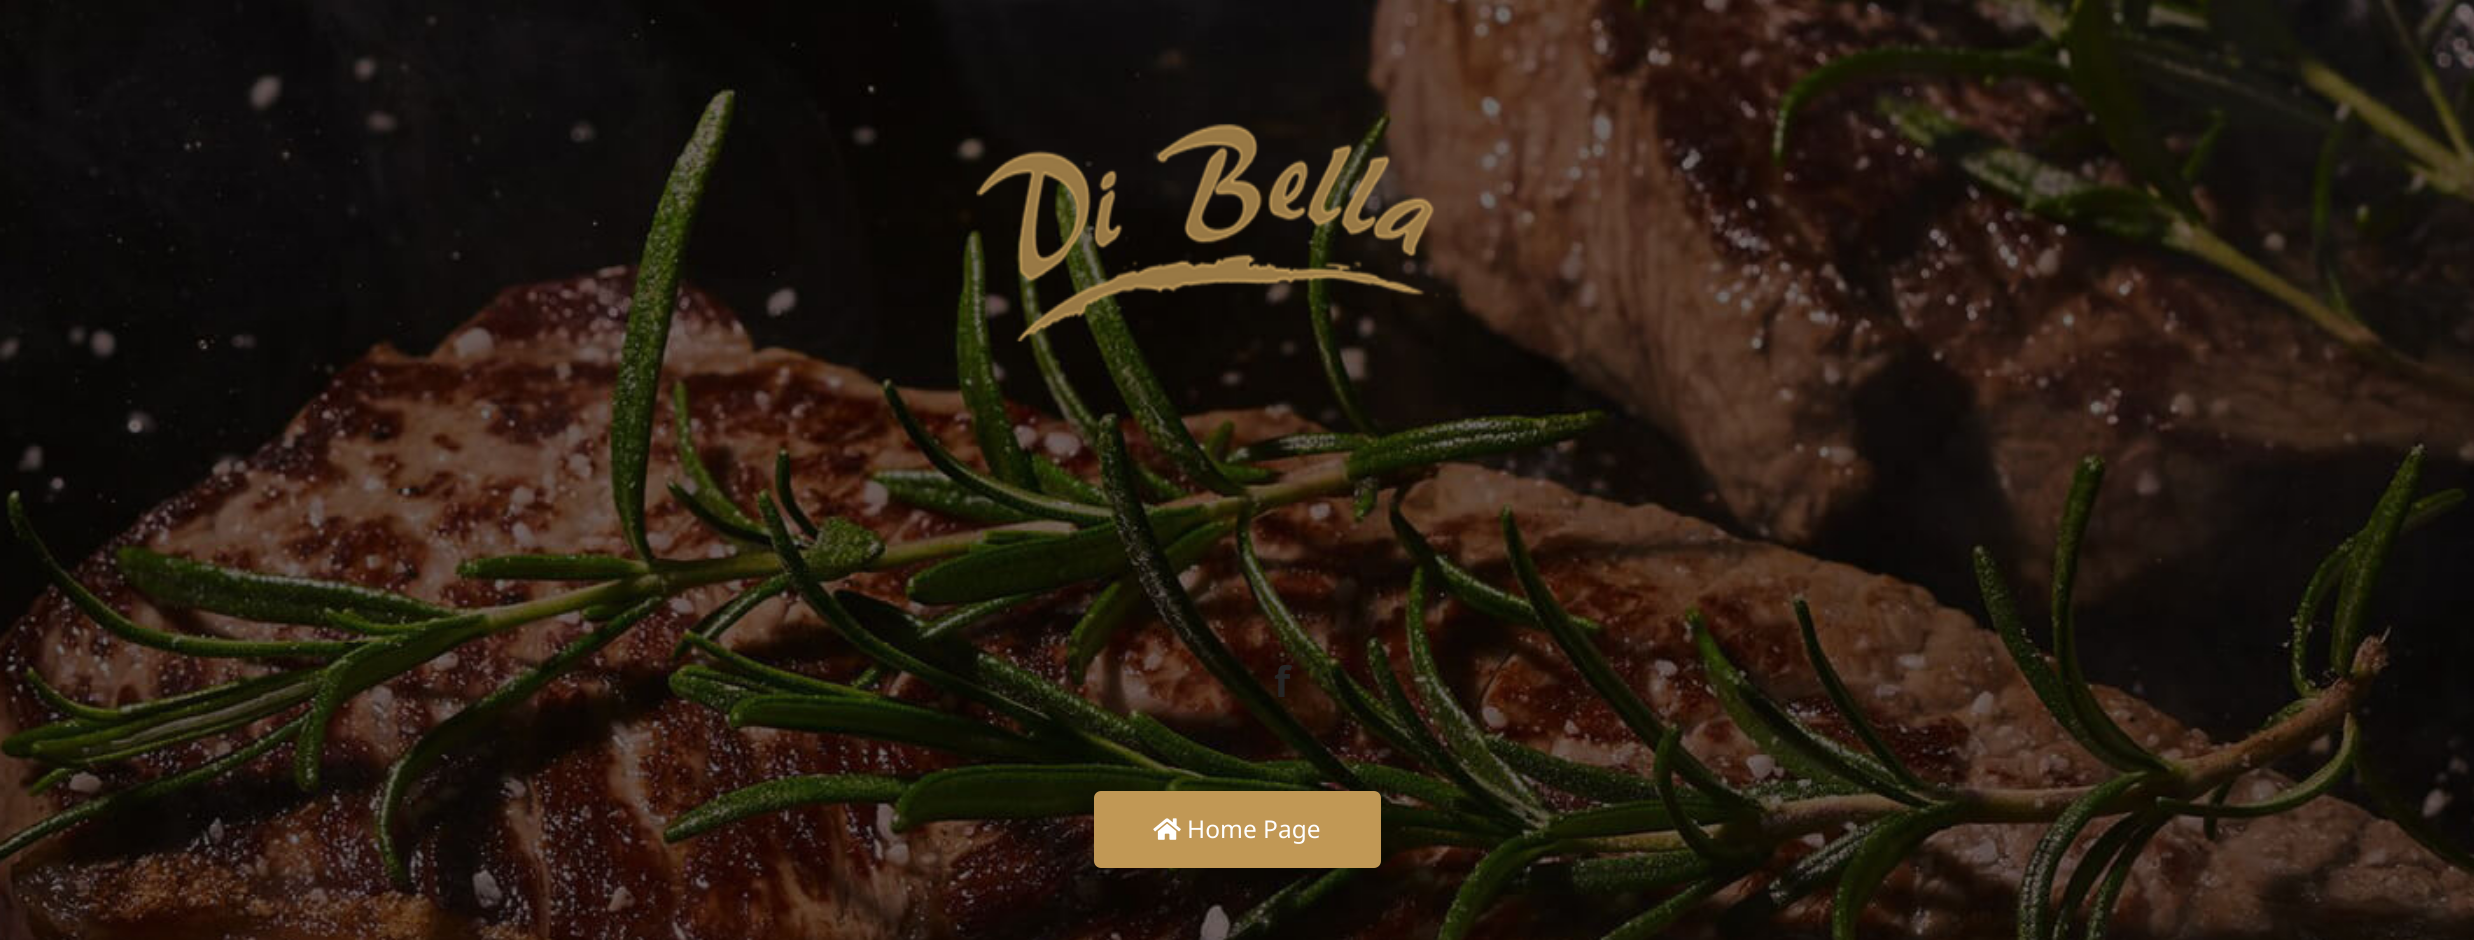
import math
import cairo



def rounded_rect(context, x, y, w, h, r):
    context.new_sub_path()
    for i, (u, v) in enumerate([(x + w - r, y + h - r), (x + r, y + h - r), (x + r, y + r), (x + w - r, y + r)]):
        context.arc(u, v, r, i * math.pi / 2, (i + 1) * math.pi / 2)
    context.close_path()


def draw_image(context, path, x, y, w, h):
    context.save()
    context.set_source_surface(cairo.ImageSurface.create_from_png(path), x, y)
    context.rectangle(x, y, w, h)
    context.fill()
    context.restore()


def draw(context):
    context.set_source_rgb(1, 1, 1)
    context.paint()
    draw_image(context, "images/1.png", 0, 0, 2474, 940)
    draw_image(context, "images/2.png", 976, 123, 489, 219)
    context.set_source_rgb(193 / 255, 152 / 255, 85 / 255)
    rounded_rect(context, 1094, 791, 287, 77, 7)
    context.fill()
    draw_image(context, "images/3.png", 1153, 818, 28, 22)
    context.select_font_face("Noto Sans", cairo.FontSlant.NORMAL, cairo.FontWeight.BOLD)
    context.set_font_size(42)
    context.set_source_rgb(37 / 255, 37 / 255, 37 / 255)
    context.move_to(1274, 697)
    context.show_text("f")
    context.select_font_face("Noto Sans")
    context.set_font_size(24.5)
    context.set_source_rgb(1, 1, 1)
    context.move_to(1187, 838)
    context.show_text("Home Page")


surface = cairo.ImageSurface(cairo.Format.RGB24, 2474, 940)
context = cairo.Context(surface)
options = cairo.FontOptions()
options.set_hint_metrics(cairo.HintMetrics.OFF)
options.set_hint_style(cairo.HintStyle.NONE)
context.set_font_options(options)
context.set_miter_limit(4)
draw(context)
surface.write_to_png("out.png")
